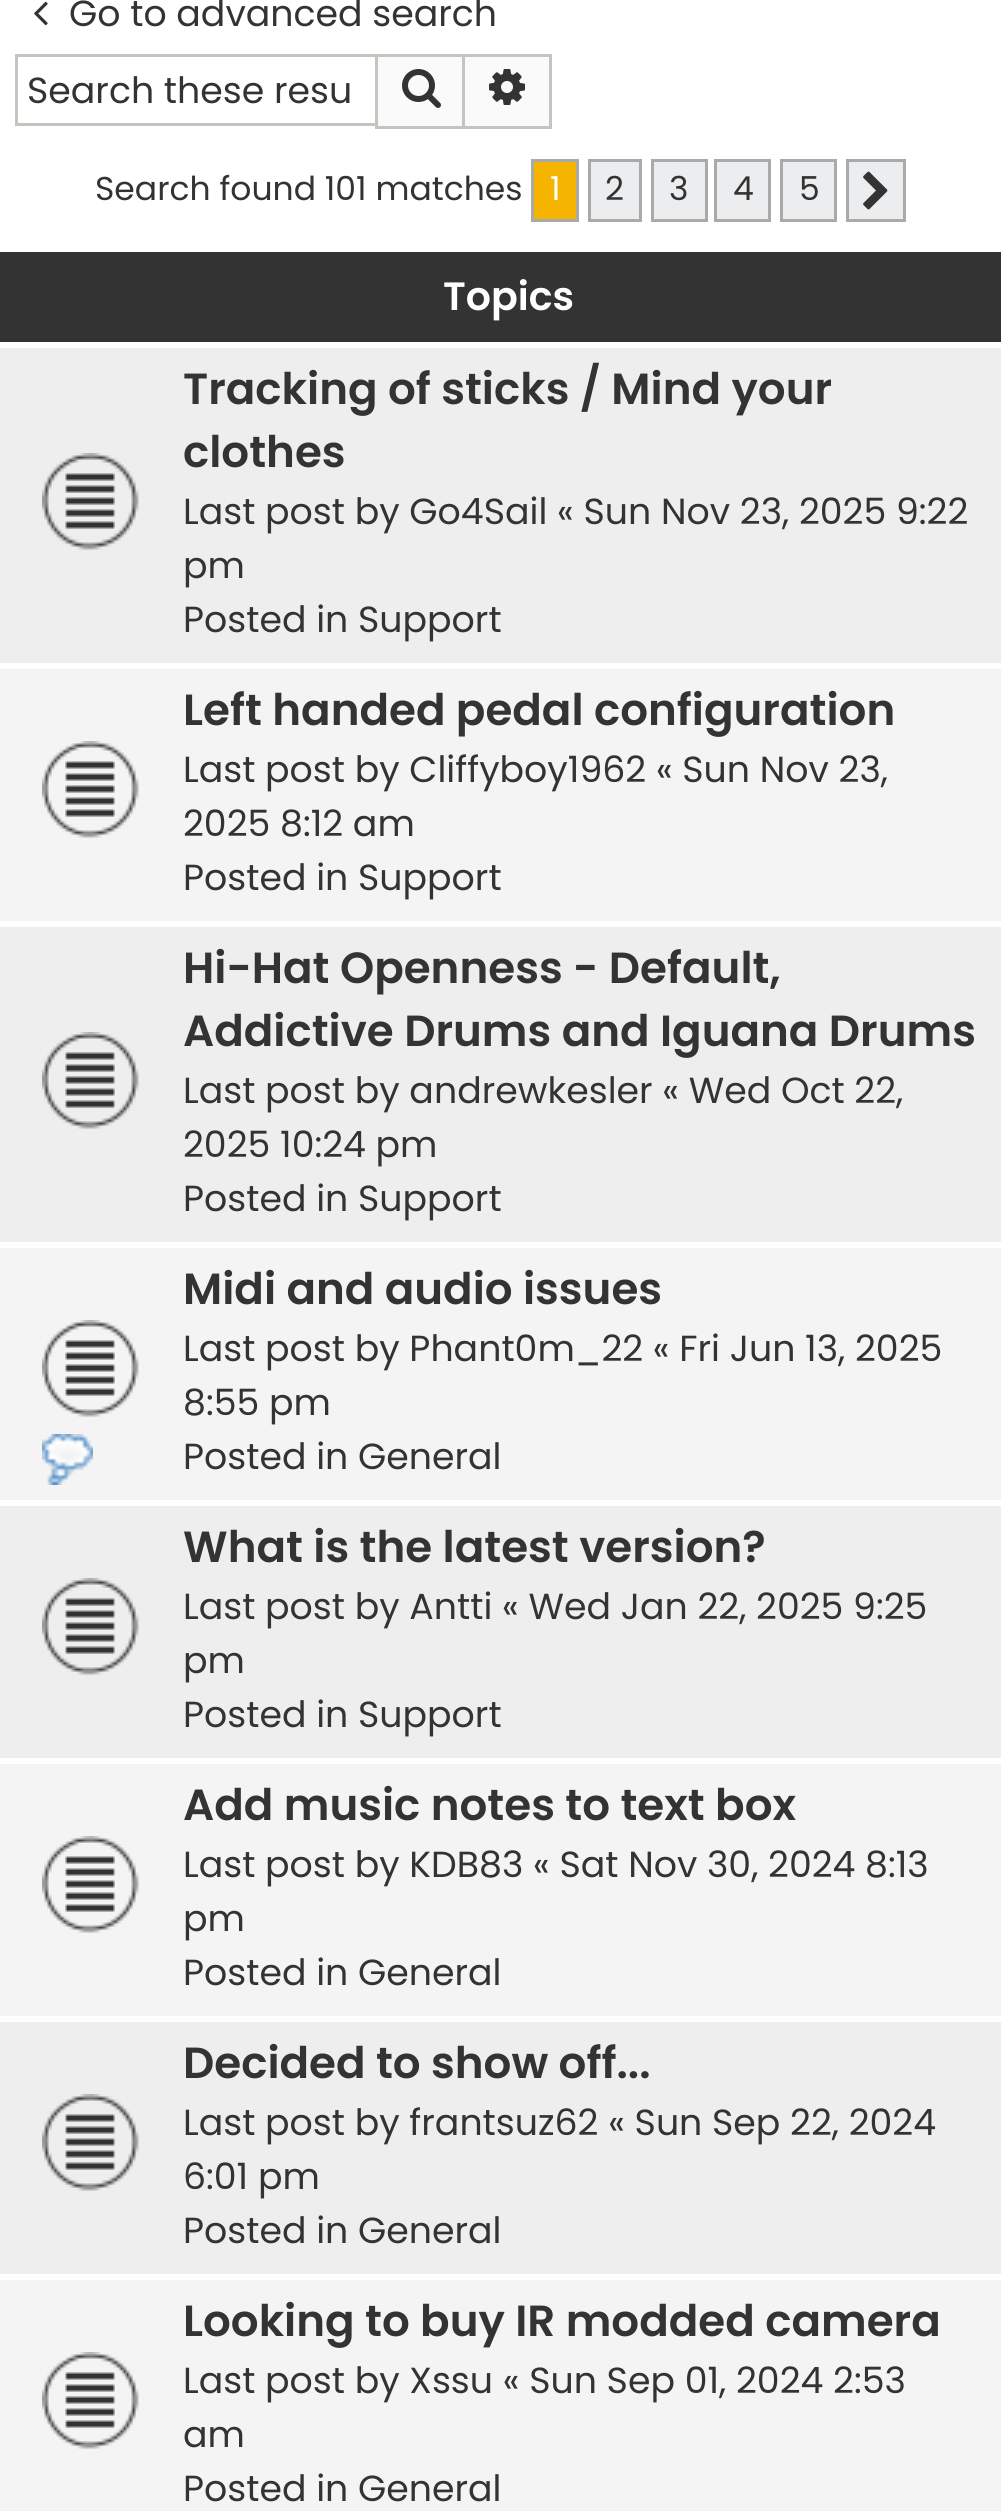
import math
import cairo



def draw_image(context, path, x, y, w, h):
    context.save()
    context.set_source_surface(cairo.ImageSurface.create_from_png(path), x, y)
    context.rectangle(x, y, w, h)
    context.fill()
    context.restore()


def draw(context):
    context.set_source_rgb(1, 1, 1)
    context.paint()
    draw_image(context, "images/1.png", 34, 1, 14, 25)
    context.set_source_rgb(199 / 255, 195 / 255, 191 / 255)
    context.rectangle(15, 54, 360, 3)
    context.fill()
    context.rectangle(15, 123, 360, 3)
    context.fill()
    context.rectangle(15, 54, 3, 72)
    context.fill()
    context.set_source_rgb(250 / 255, 250 / 255, 250 / 255)
    context.rectangle(376.5, 55.5, 87, 72)
    context.fill_preserve()
    context.set_source_rgb(199 / 255, 195 / 255, 191 / 255)
    context.set_line_width(3)
    context.stroke()
    draw_image(context, "images/2.png", 402, 69, 39, 39)
    context.set_source_rgb(250 / 255, 250 / 255, 250 / 255)
    context.rectangle(465, 57, 84, 69)
    context.fill()
    context.set_source_rgb(199 / 255, 195 / 255, 191 / 255)
    context.rectangle(465, 54, 87, 3)
    context.fill()
    context.rectangle(549, 54, 3, 75)
    context.fill()
    context.rectangle(465, 126, 87, 3)
    context.fill()
    draw_image(context, "images/3.png", 489, 69, 36, 36)
    context.set_source_rgb(244 / 255, 180 / 255, 0)
    context.rectangle(532.5, 160.5, 45, 60)
    context.fill_preserve()
    context.set_source_rgb(170 / 255, 170 / 255, 170 / 255)
    context.stroke()
    context.set_source_rgb(236 / 255, 237 / 255, 238 / 255)
    context.rectangle(589.5, 160.5, 51, 60)
    context.fill_preserve()
    context.set_source_rgb(170 / 255, 170 / 255, 170 / 255)
    context.stroke()
    context.set_source_rgb(236 / 255, 237 / 255, 238 / 255)
    context.rectangle(652.5, 160.5, 54, 60)
    context.fill_preserve()
    context.set_source_rgb(170 / 255, 170 / 255, 170 / 255)
    context.stroke()
    context.set_source_rgb(236 / 255, 237 / 255, 238 / 255)
    context.rectangle(715.5, 160.5, 54, 60)
    context.fill_preserve()
    context.set_source_rgb(170 / 255, 170 / 255, 170 / 255)
    context.stroke()
    context.set_source_rgb(236 / 255, 237 / 255, 238 / 255)
    context.rectangle(781.5, 160.5, 54, 60)
    context.fill_preserve()
    context.set_source_rgb(170 / 255, 170 / 255, 170 / 255)
    context.stroke()
    context.set_source_rgb(236 / 255, 237 / 255, 238 / 255)
    context.rectangle(847.5, 160.5, 57, 60)
    context.fill_preserve()
    context.set_source_rgb(170 / 255, 170 / 255, 170 / 255)
    context.stroke()
    draw_image(context, "images/4.png", 863, 171, 25, 39)
    context.set_source_rgb(51 / 255, 51 / 255, 51 / 255)
    context.rectangle(0, 252, 1001, 90)
    context.fill()
    context.set_source_rgb(238 / 255, 238 / 255, 238 / 255)
    context.rectangle(0, 348, 1001, 315)
    context.fill()
    draw_image(context, "images/5.png", 42, 453, 97, 97)
    context.set_source_rgb(244 / 255, 244 / 255, 244 / 255)
    context.rectangle(0, 669, 1001, 252)
    context.fill()
    draw_image(context, "images/6.png", 42, 741, 97, 97)
    context.set_source_rgb(238 / 255, 238 / 255, 238 / 255)
    context.rectangle(0, 927, 1001, 315)
    context.fill()
    draw_image(context, "images/5.png", 42, 1032, 97, 97)
    context.set_source_rgb(244 / 255, 244 / 255, 244 / 255)
    context.rectangle(0, 1248, 1001, 252)
    context.fill()
    draw_image(context, "images/6.png", 42, 1320, 97, 97)
    draw_image(context, "images/7.png", 42, 1434, 51, 51)
    context.set_source_rgb(238 / 255, 238 / 255, 238 / 255)
    context.rectangle(0, 1506, 1001, 252)
    context.fill()
    draw_image(context, "images/5.png", 42, 1578, 97, 97)
    context.set_source_rgb(244 / 255, 244 / 255, 244 / 255)
    context.rectangle(0, 1764, 1001, 252)
    context.fill()
    draw_image(context, "images/6.png", 42, 1836, 97, 97)
    context.set_source_rgb(238 / 255, 238 / 255, 238 / 255)
    context.rectangle(0, 2022, 1001, 252)
    context.fill()
    draw_image(context, "images/5.png", 42, 2094, 97, 97)
    context.set_source_rgb(244 / 255, 244 / 255, 244 / 255)
    context.rectangle(0, 2280, 1001, 231)
    context.fill()
    draw_image(context, "images/6.png", 42, 2352, 97, 97)
    context.select_font_face("Poppins")
    context.set_font_size(36.3)
    context.set_source_rgb(51 / 255, 51 / 255, 51 / 255)
    context.move_to(69, 26)
    context.show_text("Go to advanced search")
    context.move_to(27, 103)
    context.show_text("Search these resu")
    context.set_font_size(33)
    context.move_to(95, 200)
    context.show_text("Search found 101 matches")
    context.set_source_rgb(1, 1, 1)
    context.move_to(550, 200)
    context.show_text("1")
    context.set_source_rgb(51 / 255, 51 / 255, 51 / 255)
    context.move_to(605, 200)
    context.show_text("2")
    context.move_to(669, 200)
    context.show_text("3")
    context.move_to(733, 200)
    context.show_text("4")
    context.move_to(799, 200)
    context.show_text("5")
    context.select_font_face("Poppins SemiBold")
    context.set_font_size(39.5)
    context.set_source_rgb(1, 1, 1)
    context.move_to(443, 310)
    context.show_text("Topics")
    context.set_font_size(43.6)
    context.set_source_rgb(51 / 255, 51 / 255, 51 / 255)
    context.move_to(183, 404)
    context.show_text("Tracking of sticks / Mind your")
    context.move_to(183, 467)
    context.show_text("clothes")
    context.select_font_face("Poppins")
    context.set_font_size(36.3)
    context.move_to(183, 524)
    context.show_text("Last post by Go4Sail « Sun Nov 23, 2025 9:22")
    context.move_to(183, 578)
    context.show_text("pm")
    context.move_to(183, 632)
    context.show_text("Posted in Support")
    context.select_font_face("Poppins SemiBold")
    context.set_font_size(43.6)
    context.move_to(183, 725)
    context.show_text("Left handed pedal configuration")
    context.select_font_face("Poppins")
    context.set_font_size(36.3)
    context.move_to(183, 782)
    context.show_text("Last post by Cliffyboy1962 « Sun Nov 23,")
    context.move_to(183, 836)
    context.show_text("2025 8:12 am")
    context.move_to(183, 890)
    context.show_text("Posted in Support")
    context.select_font_face("Poppins SemiBold")
    context.set_font_size(43.6)
    context.move_to(183, 983)
    context.show_text("Hi-Hat Openness - Default,")
    context.move_to(183, 1046)
    context.show_text("Addictive Drums and Iguana Drums")
    context.select_font_face("Poppins")
    context.set_font_size(36.3)
    context.move_to(183, 1103)
    context.show_text("Last post by andrewkesler « Wed Oct 22,")
    context.move_to(183, 1157)
    context.show_text("2025 10:24 pm")
    context.move_to(183, 1211)
    context.show_text("Posted in Support")
    context.select_font_face("Poppins SemiBold")
    context.set_font_size(43.6)
    context.move_to(183, 1304)
    context.show_text("Midi and audio issues")
    context.select_font_face("Poppins")
    context.set_font_size(36.3)
    context.move_to(183, 1361)
    context.show_text("Last post by Phant0m_22 « Fri Jun 13, 2025")
    context.move_to(183, 1415)
    context.show_text("8:55 pm")
    context.move_to(183, 1469)
    context.show_text("Posted in General")
    context.select_font_face("Poppins SemiBold")
    context.set_font_size(43.6)
    context.move_to(183, 1562)
    context.show_text("What is the latest version?")
    context.select_font_face("Poppins")
    context.set_font_size(36.3)
    context.move_to(183, 1619)
    context.show_text("Last post by Antti « Wed Jan 22, 2025 9:25")
    context.move_to(183, 1673)
    context.show_text("pm")
    context.move_to(183, 1727)
    context.show_text("Posted in Support")
    context.select_font_face("Poppins SemiBold")
    context.set_font_size(43.6)
    context.move_to(183, 1820)
    context.show_text("Add music notes to text box")
    context.select_font_face("Poppins")
    context.set_font_size(36.3)
    context.move_to(183, 1877)
    context.show_text("Last post by KDB83 « Sat Nov 30, 2024 8:13")
    context.move_to(183, 1931)
    context.show_text("pm")
    context.move_to(183, 1985)
    context.show_text("Posted in General")
    context.select_font_face("Poppins SemiBold")
    context.set_font_size(43.6)
    context.move_to(183, 2078)
    context.show_text("Decided to show off...")
    context.select_font_face("Poppins")
    context.set_font_size(36.3)
    context.move_to(183, 2135)
    context.show_text("Last post by frantsuz62 « Sun Sep 22, 2024")
    context.move_to(183, 2189)
    context.show_text("6:01 pm")
    context.move_to(183, 2243)
    context.show_text("Posted in General")
    context.select_font_face("Poppins SemiBold")
    context.set_font_size(43.6)
    context.move_to(183, 2336)
    context.show_text("Looking to buy IR modded camera")
    context.select_font_face("Poppins")
    context.set_font_size(36.3)
    context.move_to(183, 2393)
    context.show_text("Last post by Xssu « Sun Sep 01, 2024 2:53")
    context.move_to(183, 2447)
    context.show_text("am")
    context.move_to(183, 2501)
    context.show_text("Posted in General")


surface = cairo.ImageSurface(cairo.Format.RGB24, 1001, 2511)
context = cairo.Context(surface)
options = cairo.FontOptions()
options.set_hint_metrics(cairo.HintMetrics.OFF)
options.set_hint_style(cairo.HintStyle.NONE)
context.set_font_options(options)
context.set_miter_limit(4)
draw(context)
surface.write_to_png("out.png")
